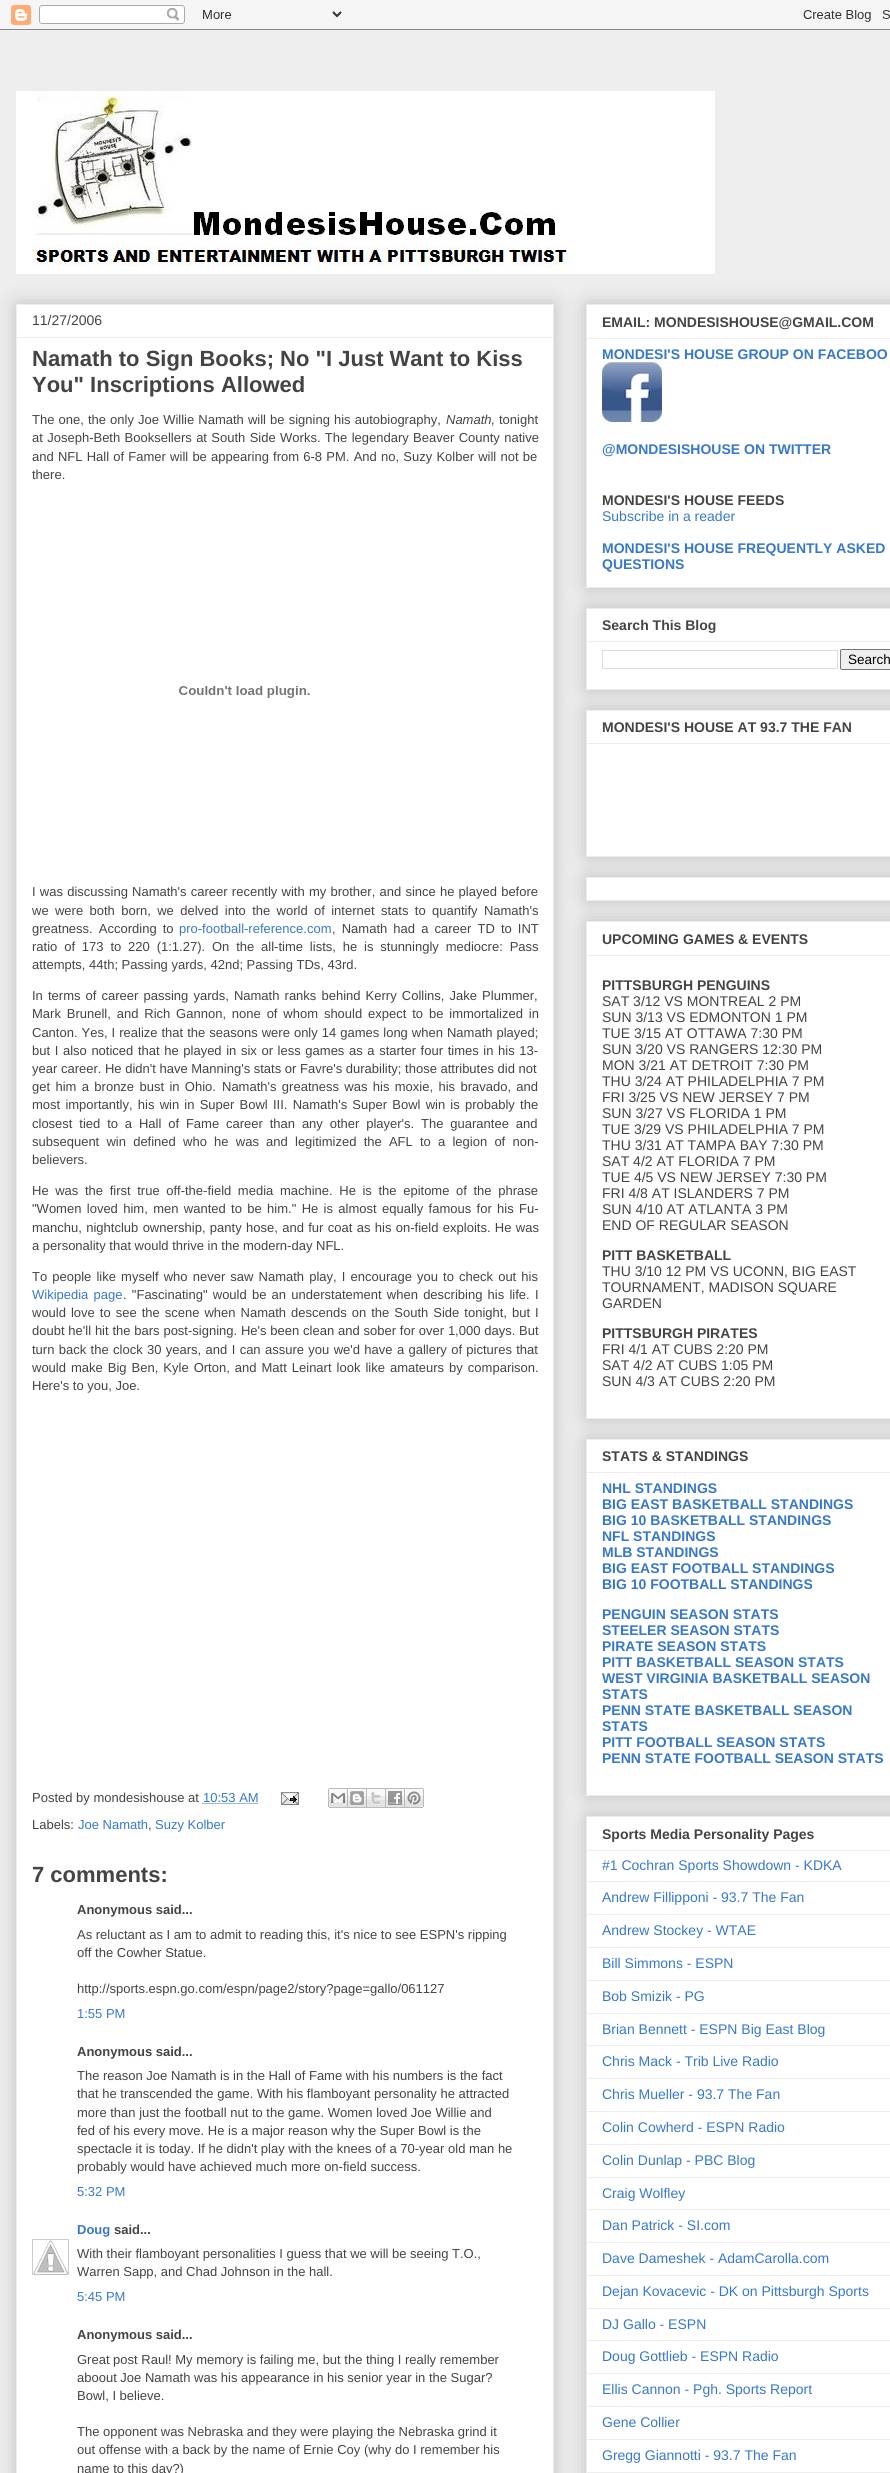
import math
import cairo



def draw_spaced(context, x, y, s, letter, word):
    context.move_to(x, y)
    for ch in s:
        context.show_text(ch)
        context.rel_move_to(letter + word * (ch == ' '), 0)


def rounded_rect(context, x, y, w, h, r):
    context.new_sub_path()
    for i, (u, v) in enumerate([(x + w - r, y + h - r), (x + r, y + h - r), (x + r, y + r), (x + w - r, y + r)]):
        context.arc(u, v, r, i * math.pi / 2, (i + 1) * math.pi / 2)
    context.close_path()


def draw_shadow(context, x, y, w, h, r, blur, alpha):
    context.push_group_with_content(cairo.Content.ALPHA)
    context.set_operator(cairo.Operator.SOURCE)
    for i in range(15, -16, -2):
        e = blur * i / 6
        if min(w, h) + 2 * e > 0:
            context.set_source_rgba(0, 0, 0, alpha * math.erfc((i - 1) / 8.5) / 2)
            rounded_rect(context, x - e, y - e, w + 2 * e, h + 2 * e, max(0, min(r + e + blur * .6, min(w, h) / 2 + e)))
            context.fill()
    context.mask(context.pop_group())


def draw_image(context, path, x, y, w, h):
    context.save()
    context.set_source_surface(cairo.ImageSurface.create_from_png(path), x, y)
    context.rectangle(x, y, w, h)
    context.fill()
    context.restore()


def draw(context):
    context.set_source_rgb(238 / 255, 238 / 255, 238 / 255)
    context.paint()
    draw_image(context, "images/1.png", 0, 0, 890, 30)
    draw_image(context, "images/2.png", 16, 91, 699, 183)
    context.set_source_rgb(0, 0, 0)
    draw_shadow(context, 16, 304, 538, 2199, 0, 10, 0.2)
    context.set_source_rgb(1, 1, 1)
    context.rectangle(16.5, 304.5, 537, 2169)
    context.fill_preserve()
    context.set_source_rgb(238 / 255, 238 / 255, 238 / 255)
    context.set_line_width(1)
    context.stroke()
    context.rectangle(17, 337, 536, 1)
    context.fill()
    draw_image(context, "images/3.png", 179, 686, 131, 12)
    context.new_path()
    context.move_to(202.5, 1803.5)
    context.line_to(258, 1803.5)
    context.set_source_rgb(55 / 255, 120 / 255, 205 / 255)
    context.set_dash([1, 1])
    context.stroke()
    draw_image(context, "images/4.png", 281, 1792, 18, 13)
    draw_image(context, "images/5.png", 328, 1788, 20, 20)
    draw_image(context, "images/6.png", 348, 1788, 19, 20)
    draw_image(context, "images/7.png", 367, 1788, 19, 20)
    draw_image(context, "images/8.png", 386, 1788, 19, 20)
    draw_image(context, "images/9.png", 405, 1788, 19, 20)
    context.save()
    context.rectangle(32, 2239, 37, 36)
    context.clip()
    context.rectangle(32.5, 2239.5, 36, 36)
    context.set_source_rgb(204 / 255, 204 / 255, 204 / 255)
    context.set_dash([])
    context.stroke()
    context.restore()
    draw_image(context, "images/10.png", 33, 2240, 35, 35)
    context.set_source_rgb(0, 0, 0)
    draw_shadow(context, 586, 304, 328, 284, 0, 10, 0.2)
    context.set_source_rgb(1, 1, 1)
    context.rectangle(586.5, 304.5, 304, 283)
    context.fill_preserve()
    context.set_source_rgb(238 / 255, 238 / 255, 238 / 255)
    context.set_dash([])
    context.stroke()
    context.rectangle(587, 338, 303, 1)
    context.fill()
    draw_image(context, "images/11.png", 602, 362, 60, 60)
    context.set_source_rgb(0, 0, 0)
    draw_shadow(context, 586, 608, 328, 82, 0, 10, 0.2)
    context.set_source_rgb(1, 1, 1)
    context.rectangle(586.5, 608.5, 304, 81)
    context.fill_preserve()
    context.set_source_rgb(238 / 255, 238 / 255, 238 / 255)
    context.stroke()
    context.rectangle(587, 641, 303, 1)
    context.fill()
    context.rectangle(602.5, 650.5, 235, 18)
    context.set_source_rgb(221 / 255, 221 / 255, 221 / 255)
    context.stroke()
    context.set_source_rgb(239 / 255, 239 / 255, 239 / 255)
    rounded_rect(context, 840.5, 649.5, 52, 20, 1.5)
    context.fill_preserve()
    context.set_source_rgb(118 / 255, 118 / 255, 118 / 255)
    context.stroke()
    context.set_source_rgb(0, 0, 0)
    draw_shadow(context, 586, 710, 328, 147, 0, 10, 0.2)
    context.set_source_rgb(1, 1, 1)
    context.rectangle(586.5, 710.5, 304, 146)
    context.fill_preserve()
    context.set_source_rgb(238 / 255, 238 / 255, 238 / 255)
    context.stroke()
    context.rectangle(587, 743, 303, 1)
    context.fill()
    context.set_source_rgb(0, 0, 0)
    draw_shadow(context, 586, 877, 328, 24, 0, 10, 0.2)
    context.set_source_rgb(1, 1, 1)
    context.rectangle(586.5, 877.5, 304, 23)
    context.fill_preserve()
    context.set_source_rgb(238 / 255, 238 / 255, 238 / 255)
    context.stroke()
    context.set_source_rgb(0, 0, 0)
    draw_shadow(context, 586, 921, 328, 498, 0, 10, 0.2)
    context.set_source_rgb(1, 1, 1)
    context.rectangle(586.5, 921.5, 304, 497)
    context.fill_preserve()
    context.set_source_rgb(238 / 255, 238 / 255, 238 / 255)
    context.stroke()
    context.rectangle(587, 955, 303, 1)
    context.fill()
    context.set_source_rgb(0, 0, 0)
    draw_shadow(context, 586, 1439, 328, 357, 0, 10, 0.2)
    context.set_source_rgb(1, 1, 1)
    context.rectangle(586.5, 1439.5, 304, 356)
    context.fill_preserve()
    context.set_source_rgb(238 / 255, 238 / 255, 238 / 255)
    context.stroke()
    context.rectangle(587, 1472, 303, 1)
    context.fill()
    context.set_source_rgb(0, 0, 0)
    draw_shadow(context, 586, 1816, 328, 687, 0, 10, 0.2)
    context.set_source_rgb(1, 1, 1)
    context.rectangle(587, 1817, 303, 655)
    context.fill()
    context.rectangle(586.5, 1816.5, 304, 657)
    context.set_source_rgb(238 / 255, 238 / 255, 238 / 255)
    context.stroke()
    context.rectangle(587, 1850, 303, 1)
    context.fill()
    context.rectangle(587, 1881, 303, 1)
    context.fill()
    context.rectangle(587, 1914, 303, 1)
    context.fill()
    context.rectangle(587, 1947, 303, 1)
    context.fill()
    context.rectangle(587, 1980, 303, 1)
    context.fill()
    context.rectangle(587, 2013, 303, 1)
    context.fill()
    context.rectangle(587, 2045, 303, 1)
    context.fill()
    context.rectangle(587, 2078, 303, 1)
    context.fill()
    context.rectangle(587, 2111, 303, 1)
    context.fill()
    context.rectangle(587, 2144, 303, 1)
    context.fill()
    context.rectangle(587, 2177, 303, 1)
    context.fill()
    context.rectangle(587, 2209, 303, 1)
    context.fill()
    context.rectangle(587, 2242, 303, 1)
    context.fill()
    context.rectangle(587, 2275, 303, 1)
    context.fill()
    context.rectangle(587, 2308, 303, 1)
    context.fill()
    context.rectangle(587, 2340, 303, 1)
    context.fill()
    context.rectangle(587, 2373, 303, 1)
    context.fill()
    context.rectangle(587, 2406, 303, 1)
    context.fill()
    context.rectangle(587, 2439, 303, 1)
    context.fill()
    context.rectangle(587, 2472, 303, 1)
    context.fill()
    context.select_font_face("Liberation Sans")
    context.set_font_size(14)
    context.set_source_rgb(68 / 255, 68 / 255, 68 / 255)
    context.move_to(32, 325)
    context.show_text("11/27/2006")
    context.select_font_face("Liberation Sans", cairo.FontSlant.NORMAL, cairo.FontWeight.BOLD)
    context.set_font_size(22)
    context.move_to(32, 366)
    context.show_text("Namath to Sign Books; No \"I Just Want to Kiss")
    context.move_to(32, 392)
    context.show_text("You\" Inscriptions Allowed")
    context.select_font_face("Liberation Sans")
    context.set_font_size(13)
    draw_spaced(context, 32, 424, "The one, the only Joe Willie Namath will be signing his autobiography,", 0, 0.5)
    context.select_font_face("Liberation Sans", cairo.FontSlant.ITALIC)
    context.move_to(446, 424)
    context.show_text("Namath,")
    context.select_font_face("Liberation Sans")
    context.move_to(499, 424)
    context.show_text("tonight")
    draw_spaced(context, 32, 442, "at Joseph-Beth Booksellers at South Side Works. The legendary Beaver County native", 0, 0.75)
    draw_spaced(context, 32, 461, "and NFL Hall of Famer will be appearing from 6-8 PM. And no, Suzy Kolber will not be", 0, 0.6)
    context.move_to(32, 479)
    context.show_text("there.")
    draw_spaced(context, 32, 896, "I was discussing Namath's career recently with my brother, and since he played before", 0, 0.6)
    draw_spaced(context, 32, 915, "we were both born, we delved into the world of internet stats to quantify Namath's", 0, 2.75)
    draw_spaced(context, 32, 933, "greatness. According to", 0, 2.5)
    context.set_source_rgb(55 / 255, 120 / 255, 205 / 255)
    context.move_to(179, 933)
    context.show_text("pro-football-reference.com")
    context.set_source_rgb(68 / 255, 68 / 255, 68 / 255)
    draw_spaced(context, 332, 933, ", Namath had a career TD to INT", 0, 2.5)
    draw_spaced(context, 32, 951, "ratio of 173 to 220 (1:1.27). On the all-time lists, he is stunningly mediocre: Pass", 0, 3.25)
    context.move_to(32, 969)
    context.show_text("attempts, 44th; Passing yards, 42nd; Passing TDs, 43rd.")
    draw_spaced(context, 32, 1000, "In terms of career passing yards, Namath ranks behind Kerry Collins, Jake Plummer,", 0, 1.5)
    draw_spaced(context, 32, 1018, "Mark Brunell, and Rich Gannon, none of whom should expect to be immortalized in", 0, 2.25)
    draw_spaced(context, 32, 1037, "Canton. Yes, I realize that the seasons were only 14 games long when Namath played;", 0, 0.4)
    draw_spaced(context, 32, 1055, "but I also noticed that he played in six or less games as a starter four times in his 13-", 0, 1)
    context.move_to(32, 1073)
    context.show_text("year career. He didn't have Manning's stats or Favre's durability; those attributes did not")
    draw_spaced(context, 32, 1091, "get him a bronze bust in Ohio.", 0, 1.75)
    draw_spaced(context, 222, 1091, "Namath's greatness was his moxie, his bravado, and", 0, 1.75)
    draw_spaced(context, 32, 1109, "most importantly, his win in Super Bowl III. Namath's Super Bowl win is probably the", 0, 1.6)
    draw_spaced(context, 32, 1128, "closest tied to a Hall of Fame career than any other player's. The guarantee and", 0, 3.25)
    draw_spaced(context, 32, 1146, "subsequent win defined who he was and legitimized the AFL to a legion of non-", 0, 3.6)
    context.move_to(32, 1164)
    context.show_text("believers.")
    draw_spaced(context, 32, 1195, "He was the first true off-the-field media machine. He is the epitome of the phrase", 0, 3)
    draw_spaced(context, 32, 1213, "\"Women loved him, men wanted to be him.\" He is almost equally famous for his Fu-", 0, 1.75)
    draw_spaced(context, 32, 1232, "manchu, nightclub ownership, panty hose, and fur coat as his on-field exploits. He was", 0, 0.75)
    context.move_to(32, 1250)
    context.show_text("a personality that would thrive in the modern-day NFL.")
    draw_spaced(context, 32, 1281, "To people like myself who never saw Namath play, I encourage you to check out his", 0, 1.5)
    context.set_source_rgb(55 / 255, 120 / 255, 205 / 255)
    draw_spaced(context, 32, 1299, "Wikipedia page", 0, 1.6)
    context.set_source_rgb(68 / 255, 68 / 255, 68 / 255)
    draw_spaced(context, 123, 1299, ". \"Fascinating\" would be an understatement when describing his life. I", 0, 1.6)
    draw_spaced(context, 32, 1317, "would love to see the scene when Namath descends on the South Side tonight, but I", 0, 1.4)
    draw_spaced(context, 32, 1335, "doubt he'll hit the bars post-signing. He's been clean and sober for over 1,000 days. But", 0, 0.2)
    draw_spaced(context, 32, 1354, "turn back the clock 30 years, and I can assure you we'd have a gallery of pictures that", 0, 0.75)
    draw_spaced(context, 32, 1372, "would make Big Ben, Kyle Orton, and Matt Leinart look like amateurs by comparison.", 0, 1.4)
    context.move_to(32, 1390)
    context.show_text("Here's to you, Joe.")
    context.move_to(32, 1802)
    context.show_text("Posted by mondesishouse at")
    context.set_source_rgb(55 / 255, 120 / 255, 205 / 255)
    context.move_to(203, 1802)
    context.show_text("10:53 AM")
    context.set_source_rgb(68 / 255, 68 / 255, 68 / 255)
    context.move_to(32, 1829)
    context.show_text("Labels:")
    context.set_source_rgb(55 / 255, 120 / 255, 205 / 255)
    context.move_to(78, 1829)
    context.show_text("Joe Namath")
    context.set_source_rgb(68 / 255, 68 / 255, 68 / 255)
    context.move_to(148, 1829)
    context.show_text(",")
    context.set_source_rgb(55 / 255, 120 / 255, 205 / 255)
    context.move_to(155, 1829)
    context.show_text("Suzy Kolber")
    context.select_font_face("Liberation Sans", cairo.FontSlant.NORMAL, cairo.FontWeight.BOLD)
    context.set_font_size(22)
    context.set_source_rgb(68 / 255, 68 / 255, 68 / 255)
    context.move_to(32, 1882)
    context.show_text("7 comments:")
    context.set_font_size(13)
    context.move_to(77, 1914)
    context.show_text("Anonymous said...")
    context.select_font_face("Liberation Sans")
    context.move_to(77, 1939)
    context.show_text("As reluctant as I am to admit to reading this, it's nice to see ESPN's ripping")
    context.move_to(77, 1957)
    context.show_text("off the Cowher Statue.")
    context.move_to(77, 1993)
    context.show_text("http://sports.espn.go.com/espn/page2/story?page=gallo/061127")
    context.set_source_rgb(55 / 255, 120 / 255, 205 / 255)
    context.move_to(77, 2018)
    context.show_text("1:55 PM")
    context.select_font_face("Liberation Sans", cairo.FontSlant.NORMAL, cairo.FontWeight.BOLD)
    context.set_source_rgb(68 / 255, 68 / 255, 68 / 255)
    context.move_to(77, 2056)
    context.show_text("Anonymous said...")
    context.select_font_face("Liberation Sans")
    context.move_to(77, 2080)
    context.show_text("The reason Joe Namath is in the Hall of Fame with his numbers is the fact")
    context.move_to(77, 2098)
    context.show_text("that he transcended the game. With his flamboyant personality he attracted")
    context.move_to(77, 2117)
    context.show_text("more than just the football nut to the game. Women loved Joe Willie and")
    context.move_to(77, 2135)
    context.show_text("fed of his every move. He is a major reason why the Super Bowl is the")
    context.move_to(77, 2153)
    context.show_text("spectacle it is today. If he didn't play with the knees of a 70-year old man he")
    context.move_to(77, 2171)
    context.show_text("probably would have achieved much more on-field success.")
    context.set_source_rgb(55 / 255, 120 / 255, 205 / 255)
    context.move_to(77, 2196)
    context.show_text("5:32 PM")
    context.select_font_face("Liberation Sans", cairo.FontSlant.NORMAL, cairo.FontWeight.BOLD)
    context.move_to(77, 2234)
    context.show_text("Doug")
    context.set_source_rgb(68 / 255, 68 / 255, 68 / 255)
    context.move_to(114, 2234)
    context.show_text("said...")
    context.select_font_face("Liberation Sans")
    context.move_to(77, 2258)
    context.show_text("With their flamboyant personalities I guess that we will be seeing T.O.,")
    context.move_to(77, 2276)
    context.show_text("Warren Sapp, and Chad Johnson in the hall.")
    context.set_source_rgb(55 / 255, 120 / 255, 205 / 255)
    context.move_to(77, 2301)
    context.show_text("5:45 PM")
    context.select_font_face("Liberation Sans", cairo.FontSlant.NORMAL, cairo.FontWeight.BOLD)
    context.set_source_rgb(68 / 255, 68 / 255, 68 / 255)
    context.move_to(77, 2339)
    context.show_text("Anonymous said...")
    context.select_font_face("Liberation Sans")
    context.move_to(77, 2364)
    context.show_text("Great post Raul! My memory is failing me, but the thing I really remember")
    context.move_to(77, 2382)
    context.show_text("aboout Joe Namath was his appearance in his senior year in the Sugar?")
    context.move_to(77, 2400)
    context.show_text("Bowl, I believe.")
    context.move_to(77, 2436)
    context.show_text("The opponent was Nebraska and they were playing the Nebraska grind it")
    context.move_to(77, 2454)
    context.show_text("out offense with a back by the name of Ernie Coy (why do I remember his")
    context.move_to(77, 2473)
    context.show_text("name to this day?)")
    context.select_font_face("Liberation Sans", cairo.FontSlant.NORMAL, cairo.FontWeight.BOLD)
    context.set_font_size(14)
    context.move_to(602, 327)
    context.show_text("EMAIL: MONDESISHOUSE@GMAIL.COM")
    context.set_source_rgb(55 / 255, 120 / 255, 205 / 255)
    context.move_to(602, 359)
    context.show_text("MONDESI'S HOUSE GROUP ON FACEBOO")
    context.move_to(602, 454)
    context.show_text("@MONDESISHOUSE ON TWITTER")
    context.set_source_rgb(68 / 255, 68 / 255, 68 / 255)
    context.move_to(602, 505)
    context.show_text("MONDESI'S HOUSE FEEDS")
    context.select_font_face("Liberation Sans")
    context.set_source_rgb(55 / 255, 120 / 255, 205 / 255)
    context.move_to(602, 521)
    context.show_text("Subscribe in a reader")
    context.select_font_face("Liberation Sans", cairo.FontSlant.NORMAL, cairo.FontWeight.BOLD)
    context.move_to(602, 553)
    context.show_text("MONDESI'S HOUSE FREQUENTLY ASKED")
    context.move_to(602, 569)
    context.show_text("QUESTIONS")
    context.set_source_rgb(68 / 255, 68 / 255, 68 / 255)
    context.move_to(602, 630)
    context.show_text("Search This Blog")
    context.select_font_face("Liberation Sans")
    context.set_font_size(13.5)
    context.set_source_rgb(0, 0, 0)
    context.move_to(848, 664)
    context.show_text("Search")
    context.select_font_face("Liberation Sans", cairo.FontSlant.NORMAL, cairo.FontWeight.BOLD)
    context.set_font_size(14)
    context.set_source_rgb(68 / 255, 68 / 255, 68 / 255)
    context.move_to(602, 732)
    context.show_text("MONDESI'S HOUSE AT 93.7 THE FAN")
    context.move_to(602, 944)
    context.show_text("UPCOMING GAMES & EVENTS")
    context.move_to(602, 990)
    context.show_text("PITTSBURGH PENGUINS")
    context.select_font_face("Liberation Sans")
    context.move_to(602, 1006)
    context.show_text("SAT 3/12 VS MONTREAL 2 PM")
    context.move_to(602, 1022)
    context.show_text("SUN 3/13 VS EDMONTON 1 PM")
    context.move_to(602, 1038)
    context.show_text("TUE 3/15 AT OTTAWA 7:30 PM")
    context.move_to(602, 1054)
    context.show_text("SUN 3/20 VS RANGERS 12:30 PM")
    context.move_to(602, 1070)
    context.show_text("MON 3/21 AT DETROIT 7:30 PM")
    context.move_to(602, 1086)
    context.show_text("THU 3/24 AT PHILADELPHIA 7 PM")
    context.move_to(602, 1102)
    context.show_text("FRI 3/25 VS NEW JERSEY 7 PM")
    context.move_to(602, 1118)
    context.show_text("SUN 3/27 VS FLORIDA 1 PM")
    context.move_to(602, 1134)
    context.show_text("TUE 3/29 VS PHILADELPHIA 7 PM")
    context.move_to(602, 1150)
    context.show_text("THU 3/31 AT TAMPA BAY 7:30 PM")
    context.move_to(602, 1166)
    context.show_text("SAT 4/2 AT FLORIDA 7 PM")
    context.move_to(602, 1182)
    context.show_text("TUE 4/5 VS NEW JERSEY 7:30 PM")
    context.move_to(602, 1198)
    context.show_text("FRI 4/8 AT ISLANDERS 7 PM")
    context.move_to(602, 1214)
    context.show_text("SUN 4/10 AT ATLANTA 3 PM")
    context.move_to(602, 1230)
    context.show_text("END OF REGULAR SEASON")
    context.select_font_face("Liberation Sans", cairo.FontSlant.NORMAL, cairo.FontWeight.BOLD)
    context.move_to(602, 1260)
    context.show_text("PITT BASKETBALL")
    context.select_font_face("Liberation Sans")
    context.move_to(602, 1276)
    context.show_text("THU 3/10 12 PM VS UCONN, BIG EAST")
    context.move_to(602, 1292)
    context.show_text("TOURNAMENT, MADISON SQUARE")
    context.move_to(602, 1308)
    context.show_text("GARDEN")
    context.select_font_face("Liberation Sans", cairo.FontSlant.NORMAL, cairo.FontWeight.BOLD)
    context.move_to(602, 1338)
    context.show_text("PITTSBURGH PIRATES")
    context.select_font_face("Liberation Sans")
    context.move_to(602, 1354)
    context.show_text("FRI 4/1 AT CUBS 2:20 PM")
    context.move_to(602, 1370)
    context.show_text("SAT 4/2 AT CUBS 1:05 PM")
    context.move_to(602, 1386)
    context.show_text("SUN 4/3 AT CUBS 2:20 PM")
    context.select_font_face("Liberation Sans", cairo.FontSlant.NORMAL, cairo.FontWeight.BOLD)
    context.move_to(602, 1461)
    context.show_text("STATS & STANDINGS")
    context.set_source_rgb(55 / 255, 120 / 255, 205 / 255)
    context.move_to(602, 1493)
    context.show_text("NHL STANDINGS")
    context.move_to(602, 1509)
    context.show_text("BIG EAST BASKETBALL STANDINGS")
    context.move_to(602, 1525)
    context.show_text("BIG 10 BASKETBALL STANDINGS")
    context.move_to(602, 1541)
    context.show_text("NFL STANDINGS")
    context.move_to(602, 1557)
    context.show_text("MLB STANDINGS")
    context.move_to(602, 1573)
    context.show_text("BIG EAST FOOTBALL STANDINGS")
    context.move_to(602, 1589)
    context.show_text("BIG 10 FOOTBALL STANDINGS")
    context.move_to(602, 1619)
    context.show_text("PENGUIN SEASON STATS")
    context.move_to(602, 1635)
    context.show_text("STEELER SEASON STATS")
    context.move_to(602, 1651)
    context.show_text("PIRATE SEASON STATS")
    context.move_to(602, 1667)
    context.show_text("PITT BASKETBALL SEASON STATS")
    context.move_to(602, 1683)
    context.show_text("WEST VIRGINIA BASKETBALL SEASON")
    context.move_to(602, 1699)
    context.show_text("STATS")
    context.move_to(602, 1715)
    context.show_text("PENN STATE BASKETBALL SEASON")
    context.move_to(602, 1731)
    context.show_text("STATS")
    context.move_to(602, 1747)
    context.show_text("PITT FOOTBALL SEASON STATS")
    context.move_to(602, 1763)
    context.show_text("PENN STATE FOOTBALL SEASON STATS")
    context.set_source_rgb(68 / 255, 68 / 255, 68 / 255)
    context.move_to(602, 1839)
    context.show_text("Sports Media Personality Pages")
    context.select_font_face("Liberation Sans")
    context.set_source_rgb(55 / 255, 120 / 255, 205 / 255)
    context.move_to(602, 1870)
    context.show_text("#1 Cochran Sports Showdown - KDKA")
    context.move_to(602, 1902)
    context.show_text("Andrew Fillipponi - 93.7 The Fan")
    context.move_to(602, 1935)
    context.show_text("Andrew Stockey - WTAE")
    context.move_to(602, 1968)
    context.show_text("Bill Simmons - ESPN")
    context.move_to(602, 2001)
    context.show_text("Bob Smizik - PG")
    context.move_to(602, 2034)
    context.show_text("Brian Bennett - ESPN Big East Blog")
    context.move_to(602, 2066)
    context.show_text("Chris Mack - Trib Live Radio")
    context.move_to(602, 2099)
    context.show_text("Chris Mueller - 93.7 The Fan")
    context.move_to(602, 2132)
    context.show_text("Colin Cowherd - ESPN Radio")
    context.move_to(602, 2165)
    context.show_text("Colin Dunlap - PBC Blog")
    context.move_to(602, 2198)
    context.show_text("Craig Wolfley")
    context.move_to(602, 2230)
    context.show_text("Dan Patrick - SI.com")
    context.move_to(602, 2263)
    context.show_text("Dave Dameshek - AdamCarolla.com")
    context.move_to(602, 2296)
    context.show_text("Dejan Kovacevic - DK on Pittsburgh Sports")
    context.move_to(602, 2329)
    context.show_text("DJ Gallo - ESPN")
    context.move_to(602, 2361)
    context.show_text("Doug Gottlieb - ESPN Radio")
    context.move_to(602, 2394)
    context.show_text("Ellis Cannon - Pgh. Sports Report")
    context.move_to(602, 2427)
    context.show_text("Gene Collier")
    context.move_to(602, 2460)
    context.show_text("Gregg Giannotti - 93.7 The Fan")


surface = cairo.ImageSurface(cairo.Format.RGB24, 890, 2473)
context = cairo.Context(surface)
options = cairo.FontOptions()
options.set_hint_metrics(cairo.HintMetrics.OFF)
options.set_hint_style(cairo.HintStyle.NONE)
context.set_font_options(options)
context.set_miter_limit(4)
draw(context)
surface.write_to_png("out.png")
